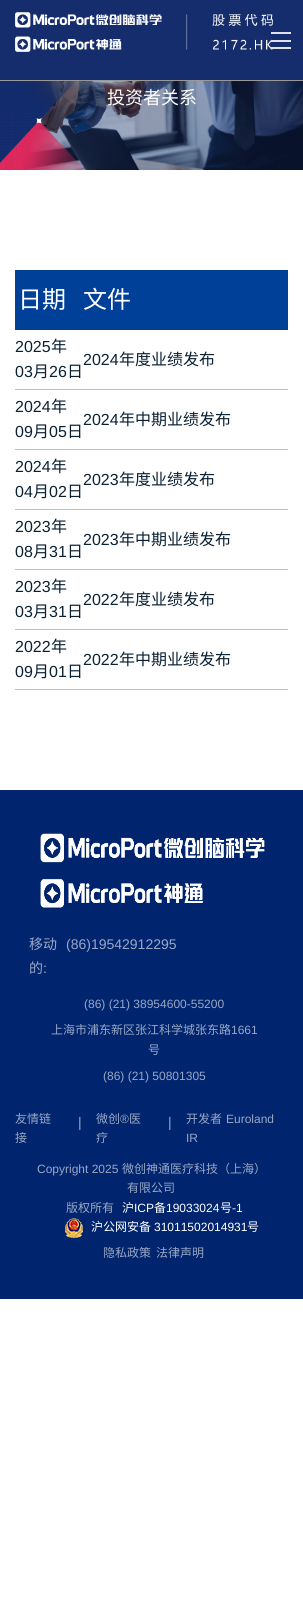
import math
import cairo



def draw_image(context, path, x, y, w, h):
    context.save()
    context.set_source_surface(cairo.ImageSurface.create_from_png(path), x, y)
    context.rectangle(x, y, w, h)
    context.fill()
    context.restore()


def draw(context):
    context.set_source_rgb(1, 1, 1)
    context.paint()
    context.set_source_rgb(21 / 255, 45 / 255, 109 / 255)
    context.rectangle(0, 0, 303, 80)
    context.fill()
    context.set_source_rgb(153 / 255, 153 / 255, 153 / 255)
    context.rectangle(0, 80, 303, 1)
    context.fill()
    draw_image(context, "images/1.png", 15, 12, 258, 40)
    context.set_source_rgb(222 / 255, 226 / 255, 230 / 255)
    context.rectangle(271, 32, 20, 2)
    context.fill()
    context.rectangle(271, 40, 20, 2)
    context.fill()
    context.rectangle(271, 47, 20, 2)
    context.fill()
    draw_image(context, "images/2.png", 0, 81, 303, 89)
    context.set_source_rgb(0, 64 / 255, 152 / 255)
    context.rectangle(15, 270, 273, 60)
    context.fill()
    context.set_source_rgb(184 / 255, 194 / 255, 204 / 255)
    context.rectangle(15, 389, 273, 1)
    context.fill()
    context.rectangle(15, 449, 273, 1)
    context.fill()
    context.rectangle(15, 509, 273, 1)
    context.fill()
    context.rectangle(15, 569, 273, 1)
    context.fill()
    context.rectangle(15, 629, 273, 1)
    context.fill()
    context.rectangle(15, 689, 273, 1)
    context.fill()
    context.set_source_rgb(0, 36 / 255, 110 / 255)
    context.rectangle(0, 790, 303, 509)
    context.fill()
    draw_image(context, "images/3.png", 40, 833, 225, 75)
    draw_image(context, "images/4.png", 65, 1218, 18, 20)
    context.select_font_face("Noto Sans CJK SC")
    context.set_font_size(18)
    context.set_source_rgb(1, 1, 1)
    context.move_to(107, 104)
    context.show_text("投资者关系")
    context.set_font_size(24)
    context.move_to(18, 308)
    context.show_text("日期")
    context.move_to(83, 308)
    context.show_text("文件")
    context.select_font_face("Liberation Sans")
    context.set_font_size(16)
    context.set_source_rgb(10 / 255, 32 / 255, 51 / 255)
    context.move_to(15, 352)
    context.show_text("2025")
    context.select_font_face("Noto Sans CJK SC")
    context.move_to(51, 352)
    context.show_text("年")
    context.select_font_face("Liberation Sans")
    context.move_to(15, 377)
    context.show_text("03")
    context.select_font_face("Noto Sans CJK SC")
    context.move_to(33, 377)
    context.show_text("月")
    context.select_font_face("Liberation Sans")
    context.move_to(49, 377)
    context.show_text("26")
    context.select_font_face("Noto Sans CJK SC")
    context.move_to(67, 377)
    context.show_text("日")
    context.select_font_face("Liberation Sans")
    context.move_to(83, 365)
    context.show_text("2024")
    context.select_font_face("Noto Sans CJK SC")
    context.move_to(119, 365)
    context.show_text("年度业绩发布")
    context.select_font_face("Liberation Sans")
    context.move_to(15, 412)
    context.show_text("2024")
    context.select_font_face("Noto Sans CJK SC")
    context.move_to(51, 412)
    context.show_text("年")
    context.select_font_face("Liberation Sans")
    context.move_to(15, 437)
    context.show_text("09")
    context.select_font_face("Noto Sans CJK SC")
    context.move_to(33, 437)
    context.show_text("月")
    context.select_font_face("Liberation Sans")
    context.move_to(49, 437)
    context.show_text("05")
    context.select_font_face("Noto Sans CJK SC")
    context.move_to(67, 437)
    context.show_text("日")
    context.select_font_face("Liberation Sans")
    context.move_to(83, 425)
    context.show_text("2024")
    context.select_font_face("Noto Sans CJK SC")
    context.move_to(119, 425)
    context.show_text("年中期业绩发布")
    context.select_font_face("Liberation Sans")
    context.move_to(15, 472)
    context.show_text("2024")
    context.select_font_face("Noto Sans CJK SC")
    context.move_to(51, 472)
    context.show_text("年")
    context.select_font_face("Liberation Sans")
    context.move_to(15, 497)
    context.show_text("04")
    context.select_font_face("Noto Sans CJK SC")
    context.move_to(33, 497)
    context.show_text("月")
    context.select_font_face("Liberation Sans")
    context.move_to(49, 497)
    context.show_text("02")
    context.select_font_face("Noto Sans CJK SC")
    context.move_to(67, 497)
    context.show_text("日")
    context.select_font_face("Liberation Sans")
    context.move_to(83, 485)
    context.show_text("2023")
    context.select_font_face("Noto Sans CJK SC")
    context.move_to(119, 485)
    context.show_text("年度业绩发布")
    context.select_font_face("Liberation Sans")
    context.move_to(15, 532)
    context.show_text("2023")
    context.select_font_face("Noto Sans CJK SC")
    context.move_to(51, 532)
    context.show_text("年")
    context.select_font_face("Liberation Sans")
    context.move_to(15, 557)
    context.show_text("08")
    context.select_font_face("Noto Sans CJK SC")
    context.move_to(33, 557)
    context.show_text("月")
    context.select_font_face("Liberation Sans")
    context.move_to(49, 557)
    context.show_text("31")
    context.select_font_face("Noto Sans CJK SC")
    context.move_to(67, 557)
    context.show_text("日")
    context.select_font_face("Liberation Sans")
    context.move_to(83, 545)
    context.show_text("2023")
    context.select_font_face("Noto Sans CJK SC")
    context.move_to(119, 545)
    context.show_text("年中期业绩发布")
    context.select_font_face("Liberation Sans")
    context.move_to(15, 592)
    context.show_text("2023")
    context.select_font_face("Noto Sans CJK SC")
    context.move_to(51, 592)
    context.show_text("年")
    context.select_font_face("Liberation Sans")
    context.move_to(15, 617)
    context.show_text("03")
    context.select_font_face("Noto Sans CJK SC")
    context.move_to(33, 617)
    context.show_text("月")
    context.select_font_face("Liberation Sans")
    context.move_to(49, 617)
    context.show_text("31")
    context.select_font_face("Noto Sans CJK SC")
    context.move_to(67, 617)
    context.show_text("日")
    context.select_font_face("Liberation Sans")
    context.move_to(83, 605)
    context.show_text("2022")
    context.select_font_face("Noto Sans CJK SC")
    context.move_to(119, 605)
    context.show_text("年度业绩发布")
    context.select_font_face("Liberation Sans")
    context.move_to(15, 652)
    context.show_text("2022")
    context.select_font_face("Noto Sans CJK SC")
    context.move_to(51, 652)
    context.show_text("年")
    context.select_font_face("Liberation Sans")
    context.move_to(15, 677)
    context.show_text("09")
    context.select_font_face("Noto Sans CJK SC")
    context.move_to(33, 677)
    context.show_text("月")
    context.select_font_face("Liberation Sans")
    context.move_to(49, 677)
    context.show_text("01")
    context.select_font_face("Noto Sans CJK SC")
    context.move_to(67, 677)
    context.show_text("日")
    context.select_font_face("Liberation Sans")
    context.move_to(83, 665)
    context.show_text("2022")
    context.select_font_face("Noto Sans CJK SC")
    context.move_to(119, 665)
    context.show_text("年中期业绩发布")
    context.set_font_size(14)
    context.set_source_rgb(153 / 255, 167 / 255, 197 / 255)
    context.move_to(29, 949)
    context.show_text("移动")
    context.move_to(29, 973)
    context.show_text("的")
    context.select_font_face("Liberation Sans")
    context.move_to(43, 973)
    context.show_text(":")
    context.move_to(66, 949)
    context.show_text("(86)19542912295")
    context.set_font_size(12)
    context.move_to(84, 1008)
    context.show_text("(86) (21) 38954600-55200")
    context.select_font_face("Noto Sans CJK SC")
    context.move_to(51, 1034)
    context.show_text("上海市浦东新区张江科学城张东路")
    context.select_font_face("Liberation Sans")
    context.move_to(231, 1034)
    context.show_text("1661")
    context.select_font_face("Noto Sans CJK SC")
    context.move_to(148, 1054)
    context.show_text("号")
    context.select_font_face("Liberation Sans")
    context.move_to(103, 1080)
    context.show_text("(86) (21) 50801305")
    context.select_font_face("Noto Sans CJK SC")
    context.move_to(15, 1123)
    context.show_text("友情链")
    context.move_to(15, 1142)
    context.show_text("接")
    context.select_font_face("Liberation Sans")
    context.set_font_size(14)
    context.move_to(78, 1127)
    context.show_text("|")
    context.select_font_face("Noto Sans CJK SC")
    context.set_font_size(12)
    context.move_to(96, 1123)
    context.show_text("微创")
    context.select_font_face("Liberation Sans")
    context.move_to(120, 1123)
    context.show_text("®")
    context.select_font_face("Noto Sans CJK SC")
    context.move_to(129, 1123)
    context.show_text("医")
    context.move_to(96, 1142)
    context.show_text("疗")
    context.select_font_face("Liberation Sans")
    context.set_font_size(14)
    context.move_to(168, 1127)
    context.show_text("|")
    context.select_font_face("Noto Sans CJK SC")
    context.set_font_size(12)
    context.move_to(186, 1123)
    context.show_text("开发者")
    context.select_font_face("Liberation Sans")
    context.move_to(226, 1123)
    context.show_text("Euroland")
    context.move_to(186, 1142)
    context.show_text("IR")
    context.move_to(37, 1173)
    context.show_text("Copyright 2025")
    context.select_font_face("Noto Sans CJK SC")
    context.move_to(122, 1173)
    context.show_text("微创神通医疗科技（上海）")
    context.move_to(127, 1192)
    context.show_text("有限公司")
    context.move_to(66, 1212)
    context.show_text("版权所有")
    context.set_source_rgb(1, 1, 1)
    context.move_to(122, 1212)
    context.show_text("沪")
    context.select_font_face("Liberation Sans")
    context.move_to(134, 1212)
    context.show_text("ICP")
    context.select_font_face("Noto Sans CJK SC")
    context.move_to(154, 1212)
    context.show_text("备")
    context.select_font_face("Liberation Sans")
    context.move_to(166, 1212)
    context.show_text("19033024")
    context.select_font_face("Noto Sans CJK SC")
    context.move_to(220, 1212)
    context.show_text("号")
    context.select_font_face("Liberation Sans")
    context.move_to(232, 1212)
    context.show_text("-1")
    context.select_font_face("Noto Sans CJK SC")
    context.move_to(91, 1231)
    context.show_text("沪公网安备")
    context.select_font_face("Liberation Sans")
    context.move_to(154, 1231)
    context.show_text("31011502014931")
    context.select_font_face("Noto Sans CJK SC")
    context.move_to(247, 1231)
    context.show_text("号")
    context.set_source_rgb(153 / 255, 167 / 255, 197 / 255)
    context.move_to(103, 1257)
    context.show_text("隐私政策")
    context.move_to(156, 1257)
    context.show_text("法律声明")


surface = cairo.ImageSurface(cairo.Format.RGB24, 303, 1599)
context = cairo.Context(surface)
options = cairo.FontOptions()
options.set_hint_metrics(cairo.HintMetrics.OFF)
options.set_hint_style(cairo.HintStyle.NONE)
context.set_font_options(options)
context.set_miter_limit(4)
draw(context)
surface.write_to_png("out.png")
